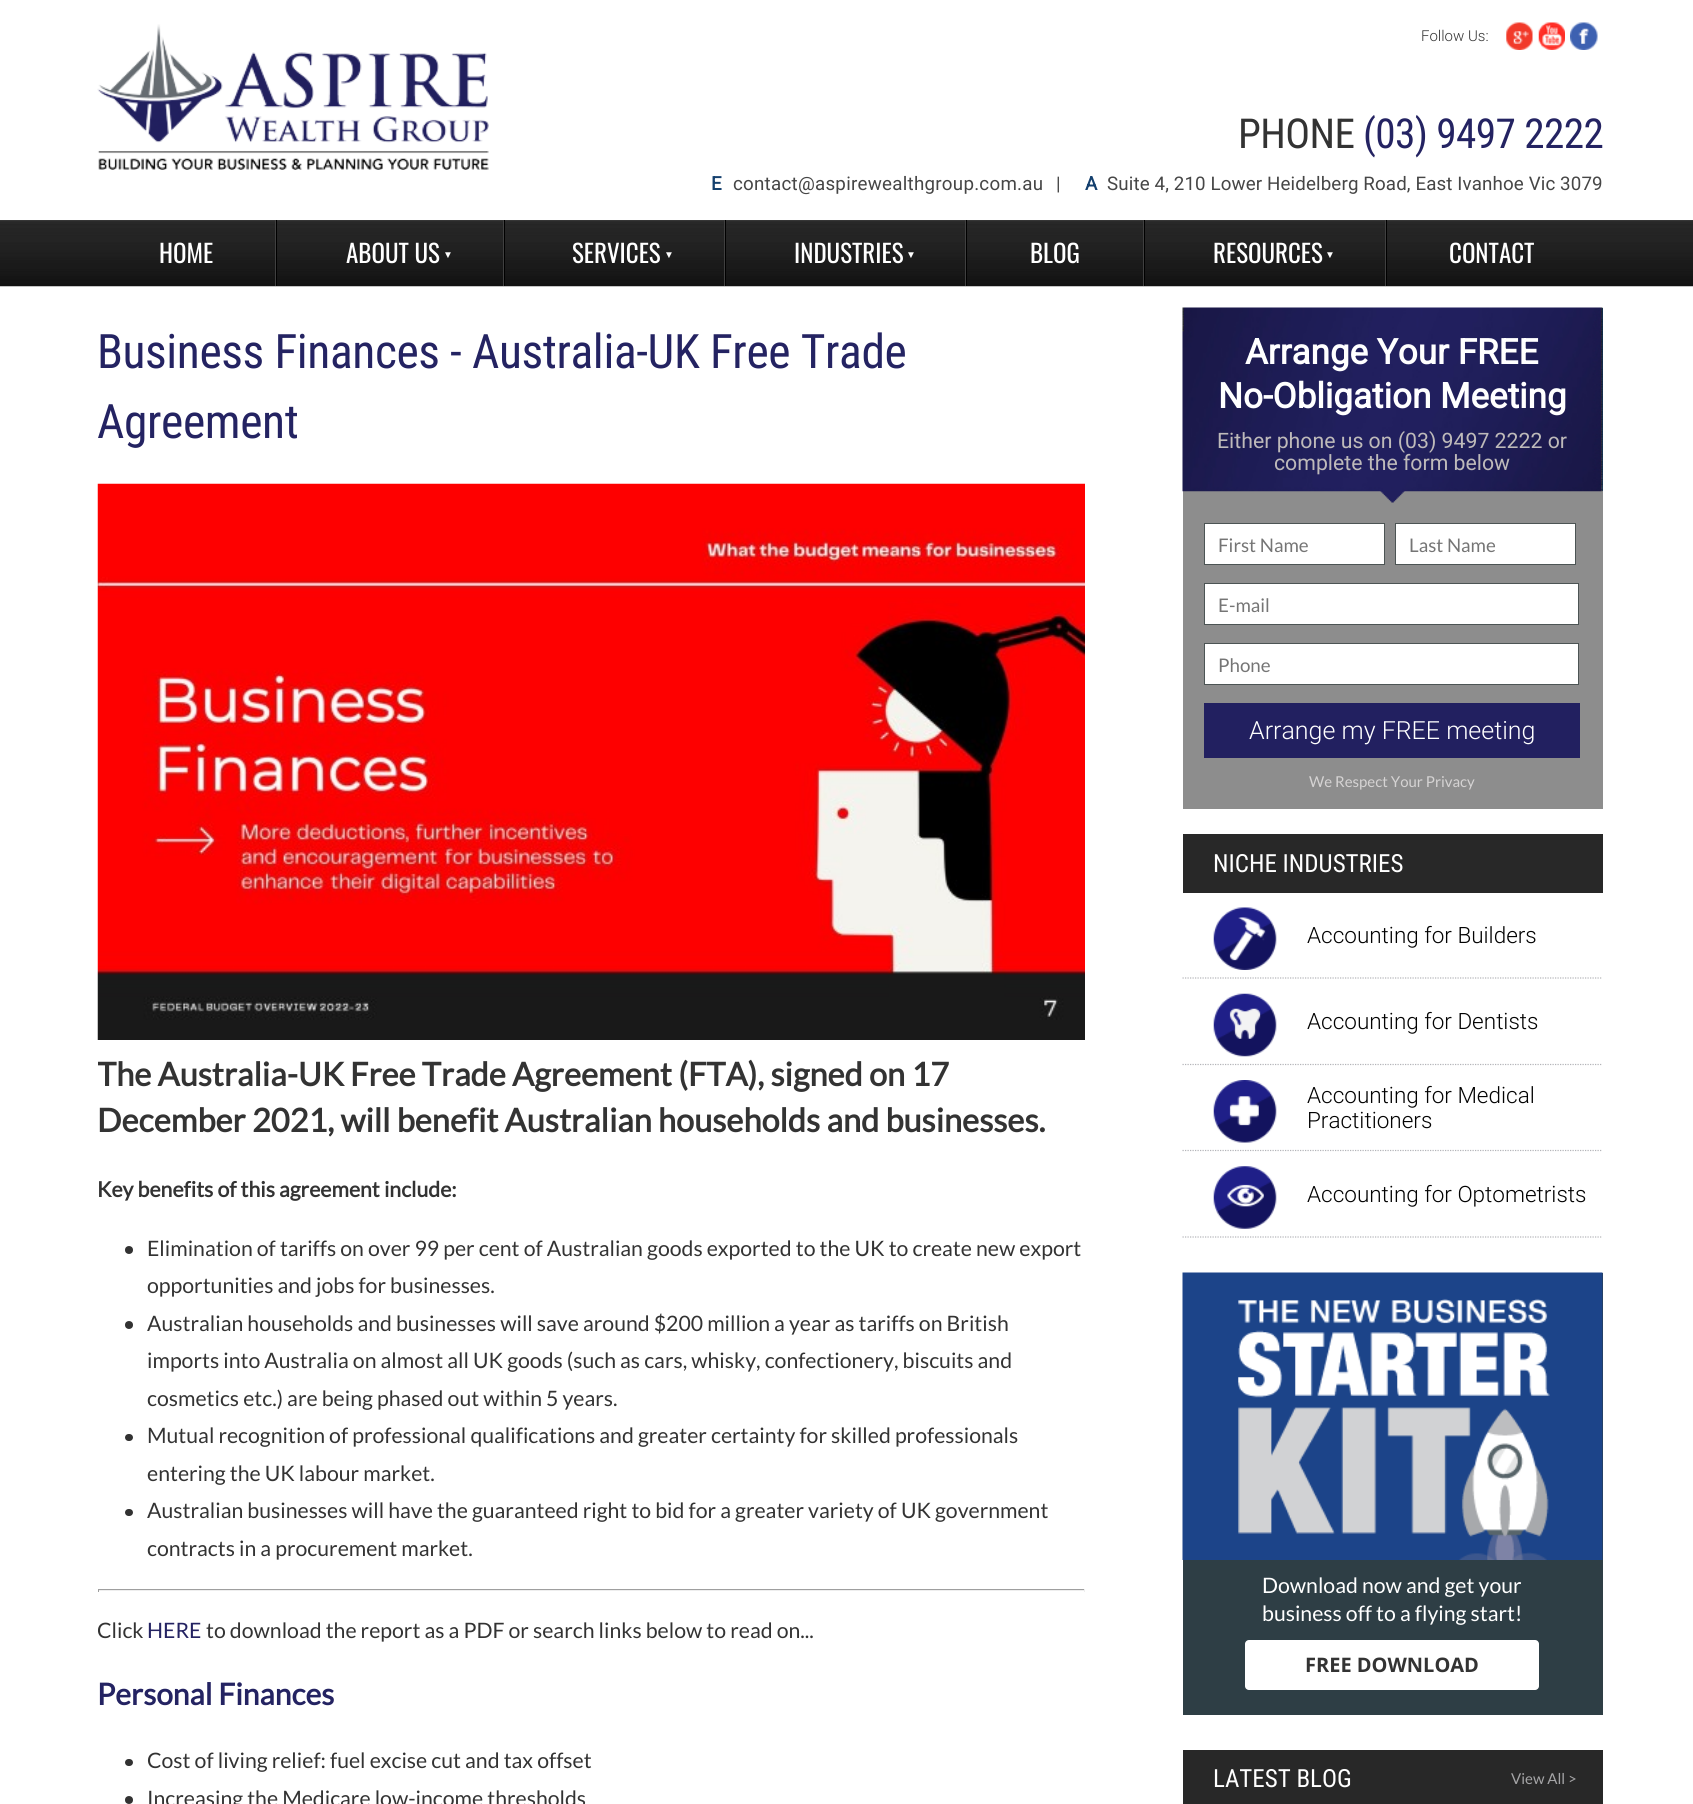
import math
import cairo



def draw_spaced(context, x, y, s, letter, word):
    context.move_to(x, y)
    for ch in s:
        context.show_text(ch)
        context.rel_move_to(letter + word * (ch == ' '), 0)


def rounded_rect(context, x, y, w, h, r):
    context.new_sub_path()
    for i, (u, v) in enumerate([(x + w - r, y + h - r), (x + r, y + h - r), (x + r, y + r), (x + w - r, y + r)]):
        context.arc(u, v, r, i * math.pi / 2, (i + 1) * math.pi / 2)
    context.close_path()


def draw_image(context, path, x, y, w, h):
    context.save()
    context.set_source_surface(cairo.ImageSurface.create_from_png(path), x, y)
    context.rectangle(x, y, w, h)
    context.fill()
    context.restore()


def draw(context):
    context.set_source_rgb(1, 1, 1)
    context.paint()
    draw_image(context, "images/1.png", 97, 24, 392, 146)
    draw_image(context, "images/2.png", 1506, 22, 27, 28)
    draw_image(context, "images/3.png", 1538, 22, 27, 28)
    draw_image(context, "images/4.png", 1570, 22, 28, 28)
    draw_image(context, "images/5.png", 0, 220, 1693, 67)
    context.set_source_rgb(64 / 255, 64 / 255, 64 / 255)
    context.rectangle(275, 220, 1, 66)
    context.fill()
    context.rectangle(503, 220, 1, 66)
    context.fill()
    context.set_source_rgb(0, 0, 0)
    context.rectangle(276, 220, 1, 66)
    context.fill()
    context.set_source_rgb(64 / 255, 64 / 255, 64 / 255)
    context.rectangle(724, 220, 1, 66)
    context.fill()
    context.set_source_rgb(0, 0, 0)
    context.rectangle(504, 220, 1, 66)
    context.fill()
    context.set_source_rgb(64 / 255, 64 / 255, 64 / 255)
    context.rectangle(965, 220, 1, 66)
    context.fill()
    context.set_source_rgb(0, 0, 0)
    context.rectangle(725, 220, 1, 66)
    context.fill()
    context.set_source_rgb(64 / 255, 64 / 255, 64 / 255)
    context.rectangle(1143, 220, 1, 66)
    context.fill()
    context.set_source_rgb(0, 0, 0)
    context.rectangle(966, 220, 1, 66)
    context.fill()
    context.set_source_rgb(64 / 255, 64 / 255, 64 / 255)
    context.rectangle(1385, 220, 1, 66)
    context.fill()
    context.set_source_rgb(0, 0, 0)
    context.rectangle(1144, 220, 1, 66)
    context.fill()
    context.rectangle(1386, 220, 1, 66)
    context.fill()
    draw_image(context, "images/6.png", 97, 483, 988, 557)
    context.set_source_rgb(50 / 255, 50 / 255, 50 / 255)
    context.arc(129, 1250, 4, 0, 2 * math.pi)
    context.fill()
    context.arc(129, 1325, 4, 0, 2 * math.pi)
    context.fill()
    rounded_rect(context, 125, 1434, 8, 7, 3.5)
    context.fill()
    rounded_rect(context, 125, 1509, 8, 7, 3.5)
    context.fill()
    context.set_source_rgb(159 / 255, 159 / 255, 159 / 255)
    context.rectangle(98, 1589, 987, 1)
    context.fill()
    context.set_source_rgb(238 / 255, 238 / 255, 238 / 255)
    context.rectangle(1084, 1589, 1, 3)
    context.fill()
    context.rectangle(98, 1590, 987, 1)
    context.fill()
    context.set_source_rgb(159 / 255, 159 / 255, 159 / 255)
    context.rectangle(98, 1589, 1, 3)
    context.fill()
    context.set_source_rgb(50 / 255, 50 / 255, 50 / 255)
    rounded_rect(context, 125, 1759, 8, 7, 3.5)
    context.fill()
    context.arc(129, 1800, 4, 0, 2 * math.pi)
    context.fill()
    context.set_source_rgb(141 / 255, 141 / 255, 141 / 255)
    context.rectangle(1183, 491, 420, 318)
    context.fill()
    context.set_source_rgb(0, 50 / 255, 104 / 255)
    context.rectangle(1602, 308, 1, 183)
    context.fill()
    draw_image(context, "images/7.png", 1182, 307, 421, 185)
    draw_image(context, "images/8.png", 1380, 491, 25, 12)
    context.set_source_rgb(1, 1, 1)
    context.rectangle(1204.5, 523.5, 180, 41)
    context.fill_preserve()
    context.set_source_rgb(76 / 255, 84 / 255, 84 / 255)
    context.set_line_width(1)
    context.stroke()
    context.set_source_rgb(1, 1, 1)
    context.rectangle(1395.5, 523.5, 180, 41)
    context.fill_preserve()
    context.set_source_rgb(76 / 255, 84 / 255, 84 / 255)
    context.stroke()
    context.set_source_rgb(1, 1, 1)
    context.rectangle(1204.5, 583.5, 374, 41)
    context.fill_preserve()
    context.set_source_rgb(76 / 255, 84 / 255, 84 / 255)
    context.stroke()
    context.set_source_rgb(1, 1, 1)
    context.rectangle(1204.5, 643.5, 374, 41)
    context.fill_preserve()
    context.set_source_rgb(76 / 255, 84 / 255, 84 / 255)
    context.stroke()
    context.set_source_rgb(34 / 255, 32 / 255, 96 / 255)
    context.rectangle(1204, 703, 376, 55)
    context.fill()
    context.set_source_rgb(40 / 255, 40 / 255, 40 / 255)
    context.rectangle(1183, 834, 420, 59)
    context.fill()
    context.new_path()
    context.move_to(1182.5, 978)
    context.line_to(1602.5, 978)
    context.set_source_rgb(179 / 255, 180 / 255, 184 / 255)
    context.set_line_width(1.2)
    context.set_dash([1.25, 1.25])
    context.stroke()
    draw_image(context, "images/9.png", 1213, 907, 64, 63)
    context.new_path()
    context.move_to(1182.5, 1064.5)
    context.line_to(1602.5, 1064.5)
    context.stroke()
    draw_image(context, "images/10.png", 1213, 993, 64, 64)
    context.new_path()
    context.move_to(1182.5, 1150.5)
    context.line_to(1602.5, 1150.5)
    context.stroke()
    draw_image(context, "images/11.png", 1213, 1080, 64, 63)
    context.new_path()
    context.move_to(1182.5, 1237)
    context.line_to(1602.5, 1237)
    context.stroke()
    draw_image(context, "images/12.png", 1213, 1166, 64, 63)
    context.set_source_rgb(46 / 255, 62 / 255, 69 / 255)
    context.rectangle(1183, 1273, 420, 442)
    context.fill()
    draw_image(context, "images/13.png", 1182, 1272, 421, 288)
    context.set_source_rgb(1, 1, 1)
    rounded_rect(context, 1245, 1640, 294, 50, 4)
    context.fill()
    context.set_source_rgb(40 / 255, 40 / 255, 40 / 255)
    context.rectangle(1183, 1750, 420, 54)
    context.fill()
    context.select_font_face("Roboto Light")
    context.set_font_size(15)
    context.set_source_rgb(51 / 255, 51 / 255, 51 / 255)
    context.move_to(1421, 41)
    context.show_text("Follow Us:")
    context.select_font_face("Roboto Condensed")
    context.set_font_size(41.25)
    draw_spaced(context, 1238, 148, "PHONE", -0.6, 0)
    context.set_source_rgb(36 / 255, 35 / 255, 98 / 255)
    draw_spaced(context, 1363, 148, "(03) 9497 2222", -0.6, 0)
    context.select_font_face("Roboto", cairo.FontSlant.NORMAL, cairo.FontWeight.BOLD)
    context.set_font_size(18.75)
    context.set_source_rgb(20 / 255, 64 / 255, 110 / 255)
    draw_spaced(context, 711, 190, "E", 0.12, 0)
    context.select_font_face("Roboto")
    context.set_source_rgb(70 / 255, 70 / 255, 70 / 255)
    draw_spaced(context, 733, 190, "contact@aspirewealthgroup.com.au", 0.25, 0)
    draw_spaced(context, 1056, 190, "|", 0.12, 0)
    context.select_font_face("Roboto", cairo.FontSlant.NORMAL, cairo.FontWeight.BOLD)
    context.set_source_rgb(20 / 255, 64 / 255, 110 / 255)
    draw_spaced(context, 1085, 190, "A", 0.12, 0)
    context.select_font_face("Roboto")
    context.set_source_rgb(70 / 255, 70 / 255, 70 / 255)
    draw_spaced(context, 1107, 190, "Suite 4, 210 Lower Heidelberg Road, East Ivanhoe Vic 3079", 0.12, 0)
    context.select_font_face("Oswald")
    context.set_font_size(25)
    context.set_source_rgb(1, 1, 1)
    context.move_to(159, 263)
    context.show_text("HOME")
    context.move_to(346, 263)
    context.show_text("ABOUT US")
    context.select_font_face("Liberation Sans")
    context.set_font_size(10)
    context.move_to(443, 258)
    context.show_text("▼")
    context.select_font_face("Oswald")
    context.set_font_size(25)
    context.move_to(572, 263)
    context.show_text("SERVICES")
    context.select_font_face("Liberation Sans")
    context.set_font_size(10)
    context.move_to(664, 258)
    context.show_text("▼")
    context.select_font_face("Oswald")
    context.set_font_size(25)
    context.move_to(794, 263)
    context.show_text("INDUSTRIES")
    context.select_font_face("Liberation Sans")
    context.set_font_size(10)
    context.move_to(906, 258)
    context.show_text("▼")
    context.select_font_face("Oswald")
    context.set_font_size(25)
    context.move_to(1030, 263)
    context.show_text("BLOG")
    context.move_to(1213, 263)
    context.show_text("RESOURCES")
    context.select_font_face("Liberation Sans")
    context.set_font_size(10)
    context.move_to(1325, 258)
    context.show_text("▼")
    context.select_font_face("Oswald")
    context.set_font_size(25)
    context.move_to(1449, 263)
    context.show_text("CONTACT")
    context.select_font_face("Roboto Condensed")
    context.set_font_size(47.5)
    context.set_source_rgb(36 / 255, 35 / 255, 98 / 255)
    draw_spaced(context, 97, 368, "Business Finances - Australia-UK Free Trade", -0.4, 0)
    draw_spaced(context, 97, 438, "Agreement", -0.4, 0)
    context.save()
    context.rectangle(98, 286, 987, 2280)
    context.clip()
    context.select_font_face("Lato", cairo.FontSlant.NORMAL, cairo.FontWeight.BOLD)
    context.set_font_size(32.5)
    context.set_source_rgb(51 / 255, 51 / 255, 51 / 255)
    context.move_to(97, 1086)
    context.show_text("The Australia-UK Free Trade Agreement (FTA), signed on 17")
    context.restore()
    context.select_font_face("Lato", cairo.FontSlant.NORMAL, cairo.FontWeight.BOLD)
    context.set_font_size(32.5)
    context.set_source_rgb(51 / 255, 51 / 255, 51 / 255)
    context.move_to(97, 1132)
    context.show_text("December 2021, will benefit Australian households and businesses.")
    context.set_font_size(21.25)
    context.move_to(97, 1197)
    context.show_text("Key benefits of this agreement include:")
    context.select_font_face("Lato")
    context.move_to(147, 1256)
    context.show_text("Elimination of tariffs on over 99 per cent of Australian goods exported to the UK to create new export")
    context.move_to(147, 1293)
    context.show_text("opportunities and jobs for businesses.")
    context.move_to(147, 1331)
    context.show_text("Australian households and businesses will save around $200 million a year as tariffs on British")
    context.move_to(147, 1368)
    context.show_text("imports into Australia on almost all UK goods (such as cars, whisky, confectionery, biscuits and")
    context.move_to(147, 1406)
    context.show_text("cosmetics etc.) are being phased out within 5 years.")
    context.move_to(147, 1443)
    context.show_text("Mutual recognition of professional qualifications and greater certainty for skilled professionals")
    context.move_to(147, 1481)
    context.show_text("entering the UK labour market.")
    context.move_to(147, 1518)
    context.show_text("Australian businesses will have the guaranteed right to bid for a greater variety of UK government")
    context.move_to(147, 1556)
    context.show_text("contracts in a procurement market.")
    context.save()
    context.rectangle(98, 286, 987, 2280)
    context.clip()
    context.move_to(97, 1638)
    context.show_text("Click")
    context.restore()
    context.set_source_rgb(36 / 255, 35 / 255, 98 / 255)
    context.move_to(147, 1638)
    context.show_text("HERE")
    context.set_source_rgb(51 / 255, 51 / 255, 51 / 255)
    context.move_to(206, 1638)
    context.show_text("to download the report as a PDF or search links below to read on...")
    context.select_font_face("Lato", cairo.FontSlant.NORMAL, cairo.FontWeight.BOLD)
    context.set_font_size(30)
    context.set_source_rgb(36 / 255, 35 / 255, 98 / 255)
    context.move_to(97, 1705)
    context.show_text("Personal Finances")
    context.select_font_face("Lato")
    context.set_font_size(21.25)
    context.set_source_rgb(51 / 255, 51 / 255, 51 / 255)
    context.move_to(147, 1768)
    context.show_text("Cost of living relief: fuel excise cut and tax offset")
    context.move_to(147, 1806)
    context.show_text("Increasing the Medicare low-income thresholds")
    context.select_font_face("Roboto", cairo.FontSlant.NORMAL, cairo.FontWeight.BOLD)
    context.set_font_size(35)
    context.set_source_rgb(1, 1, 1)
    context.move_to(1245, 364)
    context.show_text("Arrange Your FREE")
    context.move_to(1218, 408)
    context.show_text("No-Obligation Meeting")
    context.select_font_face("Roboto")
    context.set_font_size(21.25)
    context.set_source_rgb(190 / 255, 186 / 255, 186 / 255)
    context.move_to(1217, 448)
    context.show_text("Either phone us on (03) 9497 2222 or")
    context.move_to(1274, 470)
    context.show_text("complete the form below")
    context.select_font_face("Lato")
    context.set_font_size(18.75)
    context.set_source_rgb(117 / 255, 117 / 255, 117 / 255)
    context.move_to(1218, 552)
    context.show_text("First Name")
    context.move_to(1409, 552)
    context.show_text("Last Name")
    context.move_to(1218, 612)
    context.show_text("E-mail")
    context.move_to(1218, 672)
    context.show_text("Phone")
    context.select_font_face("Roboto Light")
    context.set_font_size(25)
    context.set_source_rgb(1, 1, 1)
    context.move_to(1249, 739)
    context.show_text("Arrange my FREE meeting")
    context.select_font_face("Lato")
    context.set_font_size(15)
    context.set_source_rgb(213 / 255, 211 / 255, 211 / 255)
    context.move_to(1309, 787)
    context.show_text("We Respect Your Privacy")
    context.select_font_face("Roboto Condensed")
    context.set_font_size(25)
    context.set_source_rgb(1, 1, 1)
    context.move_to(1213, 872)
    context.show_text("NICHE INDUSTRIES")
    context.select_font_face("Roboto Light")
    context.set_font_size(22.5)
    context.set_source_rgb(2 / 255, 2 / 255, 2 / 255)
    context.move_to(1307, 943)
    context.show_text("Accounting for Builders")
    context.move_to(1307, 1029)
    context.show_text("Accounting for Dentists")
    context.move_to(1307, 1103)
    context.show_text("Accounting for Medical")
    context.move_to(1307, 1128)
    context.show_text("Practitioners")
    context.move_to(1307, 1202)
    context.show_text("Accounting for Optometrists")
    context.select_font_face("Lato")
    context.set_font_size(21.25)
    context.set_source_rgb(1, 1, 1)
    context.move_to(1262, 1593)
    context.show_text("Download now and get your")
    context.move_to(1262, 1621)
    context.show_text("business off to a flying start!")
    context.select_font_face("Open Sans", cairo.FontSlant.NORMAL, cairo.FontWeight.BOLD)
    context.set_font_size(20)
    context.set_source_rgb(51 / 255, 51 / 255, 51 / 255)
    context.move_to(1305, 1672)
    context.show_text("FREE DOWNLOAD")
    context.select_font_face("Roboto Condensed")
    context.set_font_size(25)
    context.set_source_rgb(1, 1, 1)
    context.move_to(1213, 1787)
    context.show_text("LATEST BLOG")
    context.select_font_face("Lato")
    context.set_font_size(15)
    context.set_source_rgb(165 / 255, 165 / 255, 167 / 255)
    context.move_to(1511, 1784)
    context.show_text("View All >")


surface = cairo.ImageSurface(cairo.Format.RGB24, 1693, 1804)
context = cairo.Context(surface)
options = cairo.FontOptions()
options.set_hint_metrics(cairo.HintMetrics.OFF)
options.set_hint_style(cairo.HintStyle.NONE)
context.set_font_options(options)
context.set_miter_limit(4)
draw(context)
surface.write_to_png("out.png")
